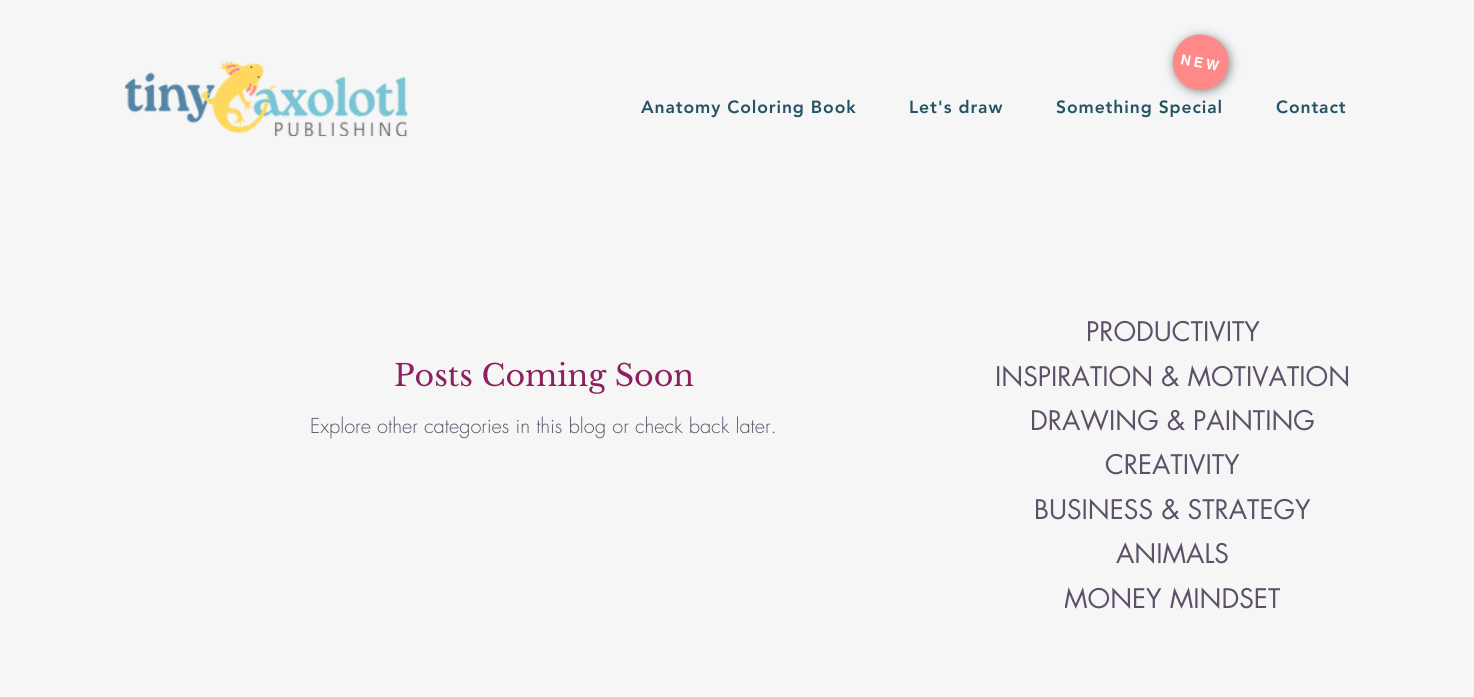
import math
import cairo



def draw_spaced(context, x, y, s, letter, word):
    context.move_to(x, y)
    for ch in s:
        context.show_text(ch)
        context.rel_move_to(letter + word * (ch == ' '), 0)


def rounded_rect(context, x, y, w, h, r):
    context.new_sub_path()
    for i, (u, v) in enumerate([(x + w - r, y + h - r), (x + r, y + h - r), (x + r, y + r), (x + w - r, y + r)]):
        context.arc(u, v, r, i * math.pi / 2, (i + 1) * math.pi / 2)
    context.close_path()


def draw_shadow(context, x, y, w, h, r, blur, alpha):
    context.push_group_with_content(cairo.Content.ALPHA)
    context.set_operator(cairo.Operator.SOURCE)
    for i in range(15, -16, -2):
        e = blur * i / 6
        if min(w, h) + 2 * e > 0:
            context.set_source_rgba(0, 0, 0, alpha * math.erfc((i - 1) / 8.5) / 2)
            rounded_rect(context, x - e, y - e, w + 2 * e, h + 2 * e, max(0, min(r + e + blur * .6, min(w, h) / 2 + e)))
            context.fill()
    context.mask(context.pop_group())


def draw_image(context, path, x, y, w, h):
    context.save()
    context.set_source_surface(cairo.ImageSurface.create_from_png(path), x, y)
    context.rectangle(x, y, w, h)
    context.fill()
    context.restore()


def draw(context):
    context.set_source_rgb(246 / 255, 246 / 255, 246 / 255)
    context.paint()
    draw_image(context, "images/1.png", 125, 60, 283, 77)
    context.set_source_rgb(0, 0, 0)
    draw_shadow(context, 1175, 38, 54, 52, 26, 5.5, 0.53)
    context.set_source_rgb(1, 137 / 255, 137 / 255)
    context.new_path()
    context.move_to(1205, 35)
    context.curve_to(1241, 42, 1234, 93, 1196, 90)
    context.curve_to(1191, 89, 1185, 86, 1181, 82)
    context.curve_to(1162, 63, 1179, 30, 1205, 35)
    context.close_path()
    context.fill()
    context.select_font_face("helvetica", cairo.FontSlant.NORMAL, cairo.FontWeight.BOLD)
    context.set_font_size(14)
    context.set_source_rgb(1, 1, 1)
    context.save()
    context.translate(1180, 64)
    context.rotate(10.4 * math.pi / 180)
    draw_spaced(context, 0, 0, "NEW", 3, 0)
    context.restore()
    context.select_font_face("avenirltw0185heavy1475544 Black")
    context.set_font_size(17.5)
    context.set_source_rgb(37 / 255, 83 / 255, 102 / 255)
    draw_spaced(context, 641, 113, "Anatomy Coloring Book", 0.9, 0)
    draw_spaced(context, 909, 113, "Let's draw", 0.9, 0)
    draw_spaced(context, 1056, 113, "Something Special", 0.9, 0)
    draw_spaced(context, 1276, 113, "Contact", 0.9, 0)
    context.select_font_face("Libre Baskerville")
    context.set_font_size(30)
    context.set_source_rgb(140 / 255, 32 / 255, 97 / 255)
    context.move_to(394, 386)
    context.show_text("Posts Coming Soon")
    context.select_font_face("futura Light")
    context.set_font_size(20)
    context.set_source_rgb(92 / 255, 81 / 255, 104 / 255)
    context.move_to(310, 433)
    context.show_text("Explore other categories in this blog or check back later.")
    context.select_font_face("futura")
    context.set_font_size(26.25)
    context.move_to(1086, 341)
    context.show_text("PRODUCTIVITY")
    context.move_to(995, 386)
    context.show_text("INSPIRATION & MOTIVATION")
    context.move_to(1030, 430)
    context.show_text("DRAWING & PAINTING")
    context.move_to(1105, 474)
    context.show_text("CREATIVITY")
    context.move_to(1034, 519)
    context.show_text("BUSINESS & STRATEGY")
    context.move_to(1116, 563)
    context.show_text("ANIMALS")
    context.save()
    context.rectangle(1065, 579, 215, 40)
    context.clip()
    context.move_to(1064, 608)
    context.show_text("MONEY MINDSET")
    context.restore()


surface = cairo.ImageSurface(cairo.Format.RGB24, 1474, 697)
context = cairo.Context(surface)
options = cairo.FontOptions()
options.set_hint_metrics(cairo.HintMetrics.OFF)
options.set_hint_style(cairo.HintStyle.NONE)
context.set_font_options(options)
context.set_miter_limit(4)
draw(context)
surface.write_to_png("out.png")
